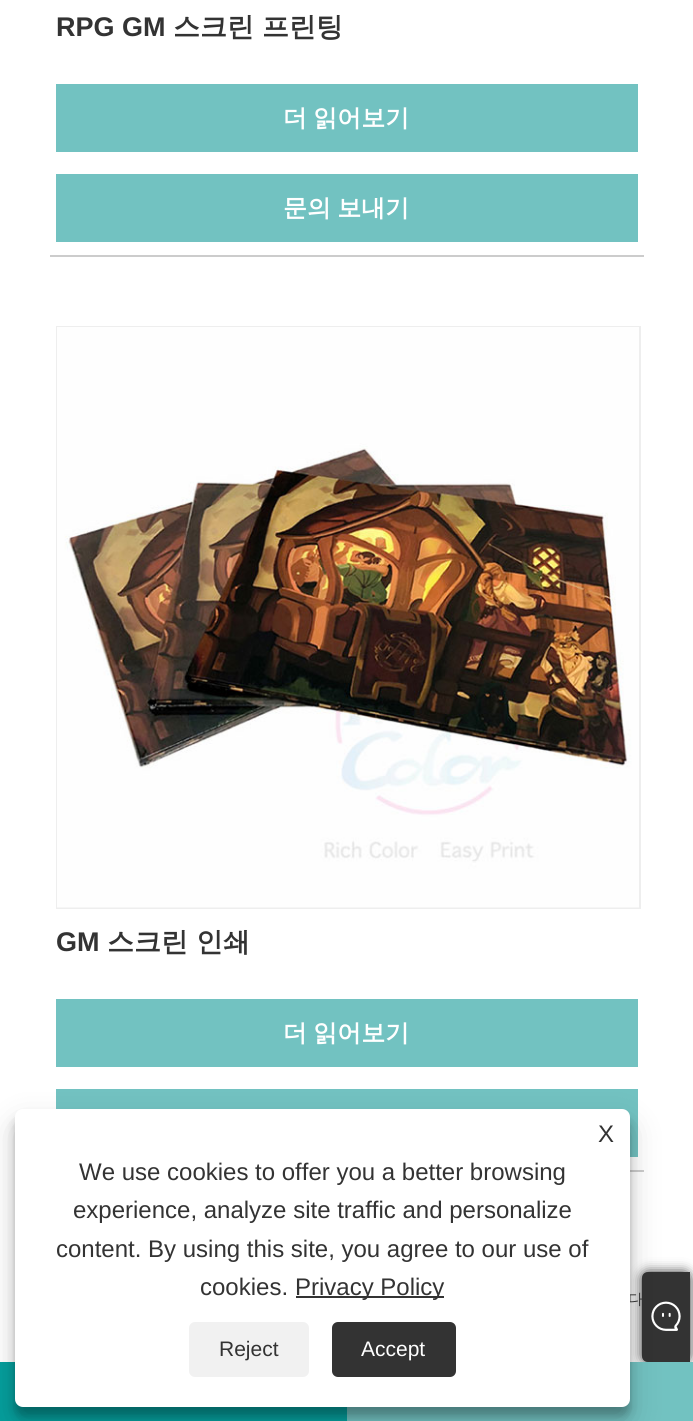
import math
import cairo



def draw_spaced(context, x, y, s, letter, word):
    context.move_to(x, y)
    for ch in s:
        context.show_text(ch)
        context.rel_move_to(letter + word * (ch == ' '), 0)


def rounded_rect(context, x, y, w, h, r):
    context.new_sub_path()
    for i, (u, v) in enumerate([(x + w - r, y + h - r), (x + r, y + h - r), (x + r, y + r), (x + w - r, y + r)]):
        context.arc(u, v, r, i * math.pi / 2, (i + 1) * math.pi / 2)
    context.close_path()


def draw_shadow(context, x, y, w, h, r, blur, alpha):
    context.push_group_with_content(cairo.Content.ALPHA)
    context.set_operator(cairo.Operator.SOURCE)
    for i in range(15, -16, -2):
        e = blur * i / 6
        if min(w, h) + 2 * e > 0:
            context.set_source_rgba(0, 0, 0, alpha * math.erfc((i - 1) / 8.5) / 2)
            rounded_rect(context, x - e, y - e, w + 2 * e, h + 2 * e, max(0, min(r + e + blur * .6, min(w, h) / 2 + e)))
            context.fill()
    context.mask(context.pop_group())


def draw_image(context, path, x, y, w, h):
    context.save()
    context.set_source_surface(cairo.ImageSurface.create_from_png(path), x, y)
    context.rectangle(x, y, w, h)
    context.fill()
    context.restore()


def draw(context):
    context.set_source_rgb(1, 1, 1)
    context.paint()
    context.set_source_rgb(204 / 255, 204 / 255, 204 / 255)
    context.rectangle(50, 255, 594, 2)
    context.fill()
    context.set_source_rgb(114 / 255, 194 / 255, 193 / 255)
    context.rectangle(56, 84, 582, 68)
    context.fill()
    context.rectangle(56, 174, 582, 68)
    context.fill()
    context.set_source_rgb(204 / 255, 204 / 255, 204 / 255)
    context.rectangle(630, 1170, 14, 2)
    context.fill()
    context.rectangle(57, 327, 583, 581)
    context.set_source_rgb(238 / 255, 238 / 255, 238 / 255)
    context.stroke()
    draw_image(context, "images/1.png", 57, 327, 582, 581)
    context.set_source_rgb(114 / 255, 194 / 255, 193 / 255)
    context.rectangle(56, 999, 582, 68)
    context.fill()
    context.rectangle(56, 1089, 582, 68)
    context.fill()
    context.set_source_rgb(51 / 255, 51 / 255, 51 / 255)
    draw_shadow(context, 642, 1272, 48, 90, 6, 6, 1)
    context.set_source_rgb(51 / 255, 51 / 255, 51 / 255)
    context.new_path()
    context.move_to(648, 1272)
    context.line_to(690, 1272)
    context.line_to(690, 1362)
    context.line_to(648, 1362)
    context.curve_to(644.5, 1362, 642, 1359.5, 642, 1356)
    context.line_to(642, 1278)
    context.curve_to(642, 1274.5, 644.5, 1272, 648, 1272)
    context.close_path()
    context.fill()
    context.set_source_rgb(5 / 255, 158 / 255, 156 / 255)
    context.rectangle(0, 1362, 347, 59)
    context.fill()
    context.set_source_rgb(114 / 255, 194 / 255, 193 / 255)
    context.rectangle(347, 1362, 346, 59)
    context.fill()
    context.set_source_rgb(0, 0, 0)
    draw_shadow(context, 15, 1118, 615, 298, 8, 4.5, 0.23)
    draw_image(context, "images/2.png", 651, 1301, 30, 30)
    draw_shadow(context, 15, 1124, 615, 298, 8, 15, 0.19)
    context.select_font_face("Liberation Sans", cairo.FontSlant.NORMAL, cairo.FontWeight.BOLD)
    context.set_font_size(27)
    context.set_source_rgb(51 / 255, 51 / 255, 51 / 255)
    context.move_to(56, 36)
    context.show_text("RPG GM")
    context.select_font_face("WenQuanYi Zen Hei", cairo.FontSlant.NORMAL, cairo.FontWeight.BOLD)
    context.move_to(173, 36)
    context.show_text("스크린")
    context.move_to(262, 36)
    context.show_text("프린팅")
    context.set_font_size(24)
    context.set_source_rgb(1, 1, 1)
    draw_spaced(context, 283, 126, "더 읽어보기", 0, -1)
    draw_spaced(context, 283, 216, "문의 보내기", 0, -1)
    context.select_font_face("Liberation Sans", cairo.FontSlant.NORMAL, cairo.FontWeight.BOLD)
    context.set_font_size(27)
    context.set_source_rgb(51 / 255, 51 / 255, 51 / 255)
    context.move_to(56, 951)
    context.show_text("GM")
    context.select_font_face("WenQuanYi Zen Hei", cairo.FontSlant.NORMAL, cairo.FontWeight.BOLD)
    context.move_to(107, 951)
    context.show_text("스크린 인쇄")
    context.set_font_size(24)
    context.set_source_rgb(1, 1, 1)
    draw_spaced(context, 283, 1041, "더 읽어보기", 0, -1)
    context.select_font_face("WenQuanYi Zen Hei Medium")
    context.set_font_size(15)
    context.set_source_rgb(51 / 255, 51 / 255, 51 / 255)
    context.move_to(628, 1304)
    context.show_text("다")
    context.set_source_rgb(1, 1, 1)
    rounded_rect(context, 15, 1109, 615, 298, 8)
    context.fill()
    context.select_font_face("Liberation Sans")
    context.set_font_size(24)
    context.set_source_rgb(51 / 255, 51 / 255, 51 / 255)
    context.move_to(598, 1142)
    context.show_text("X")
    context.move_to(79, 1180)
    context.show_text("We use cookies to offer you a better browsing")
    context.move_to(73, 1218)
    context.show_text("experience, analyze site traffic and personalize")
    context.move_to(56, 1257)
    context.show_text("content. By using this site, you agree to our use of")
    context.move_to(200, 1295)
    context.show_text("cookies.")
    context.rectangle(296, 1296, 148, 2)
    context.fill()
    context.move_to(295, 1295)
    context.show_text("Privacy Policy")
    context.set_source_rgb(241 / 255, 241 / 255, 241 / 255)
    rounded_rect(context, 189, 1322, 120, 55, 6)
    context.fill()
    context.set_font_size(21)
    context.set_source_rgb(51 / 255, 51 / 255, 51 / 255)
    context.move_to(219, 1356)
    context.show_text("Reject")
    rounded_rect(context, 332, 1322, 124, 55, 6)
    context.fill()
    context.set_source_rgb(1, 1, 1)
    context.move_to(361, 1356)
    context.show_text("Accept")


surface = cairo.ImageSurface(cairo.Format.RGB24, 693, 1421)
context = cairo.Context(surface)
options = cairo.FontOptions()
options.set_hint_metrics(cairo.HintMetrics.OFF)
options.set_hint_style(cairo.HintStyle.NONE)
context.set_font_options(options)
context.set_miter_limit(4)
draw(context)
surface.write_to_png("out.png")
